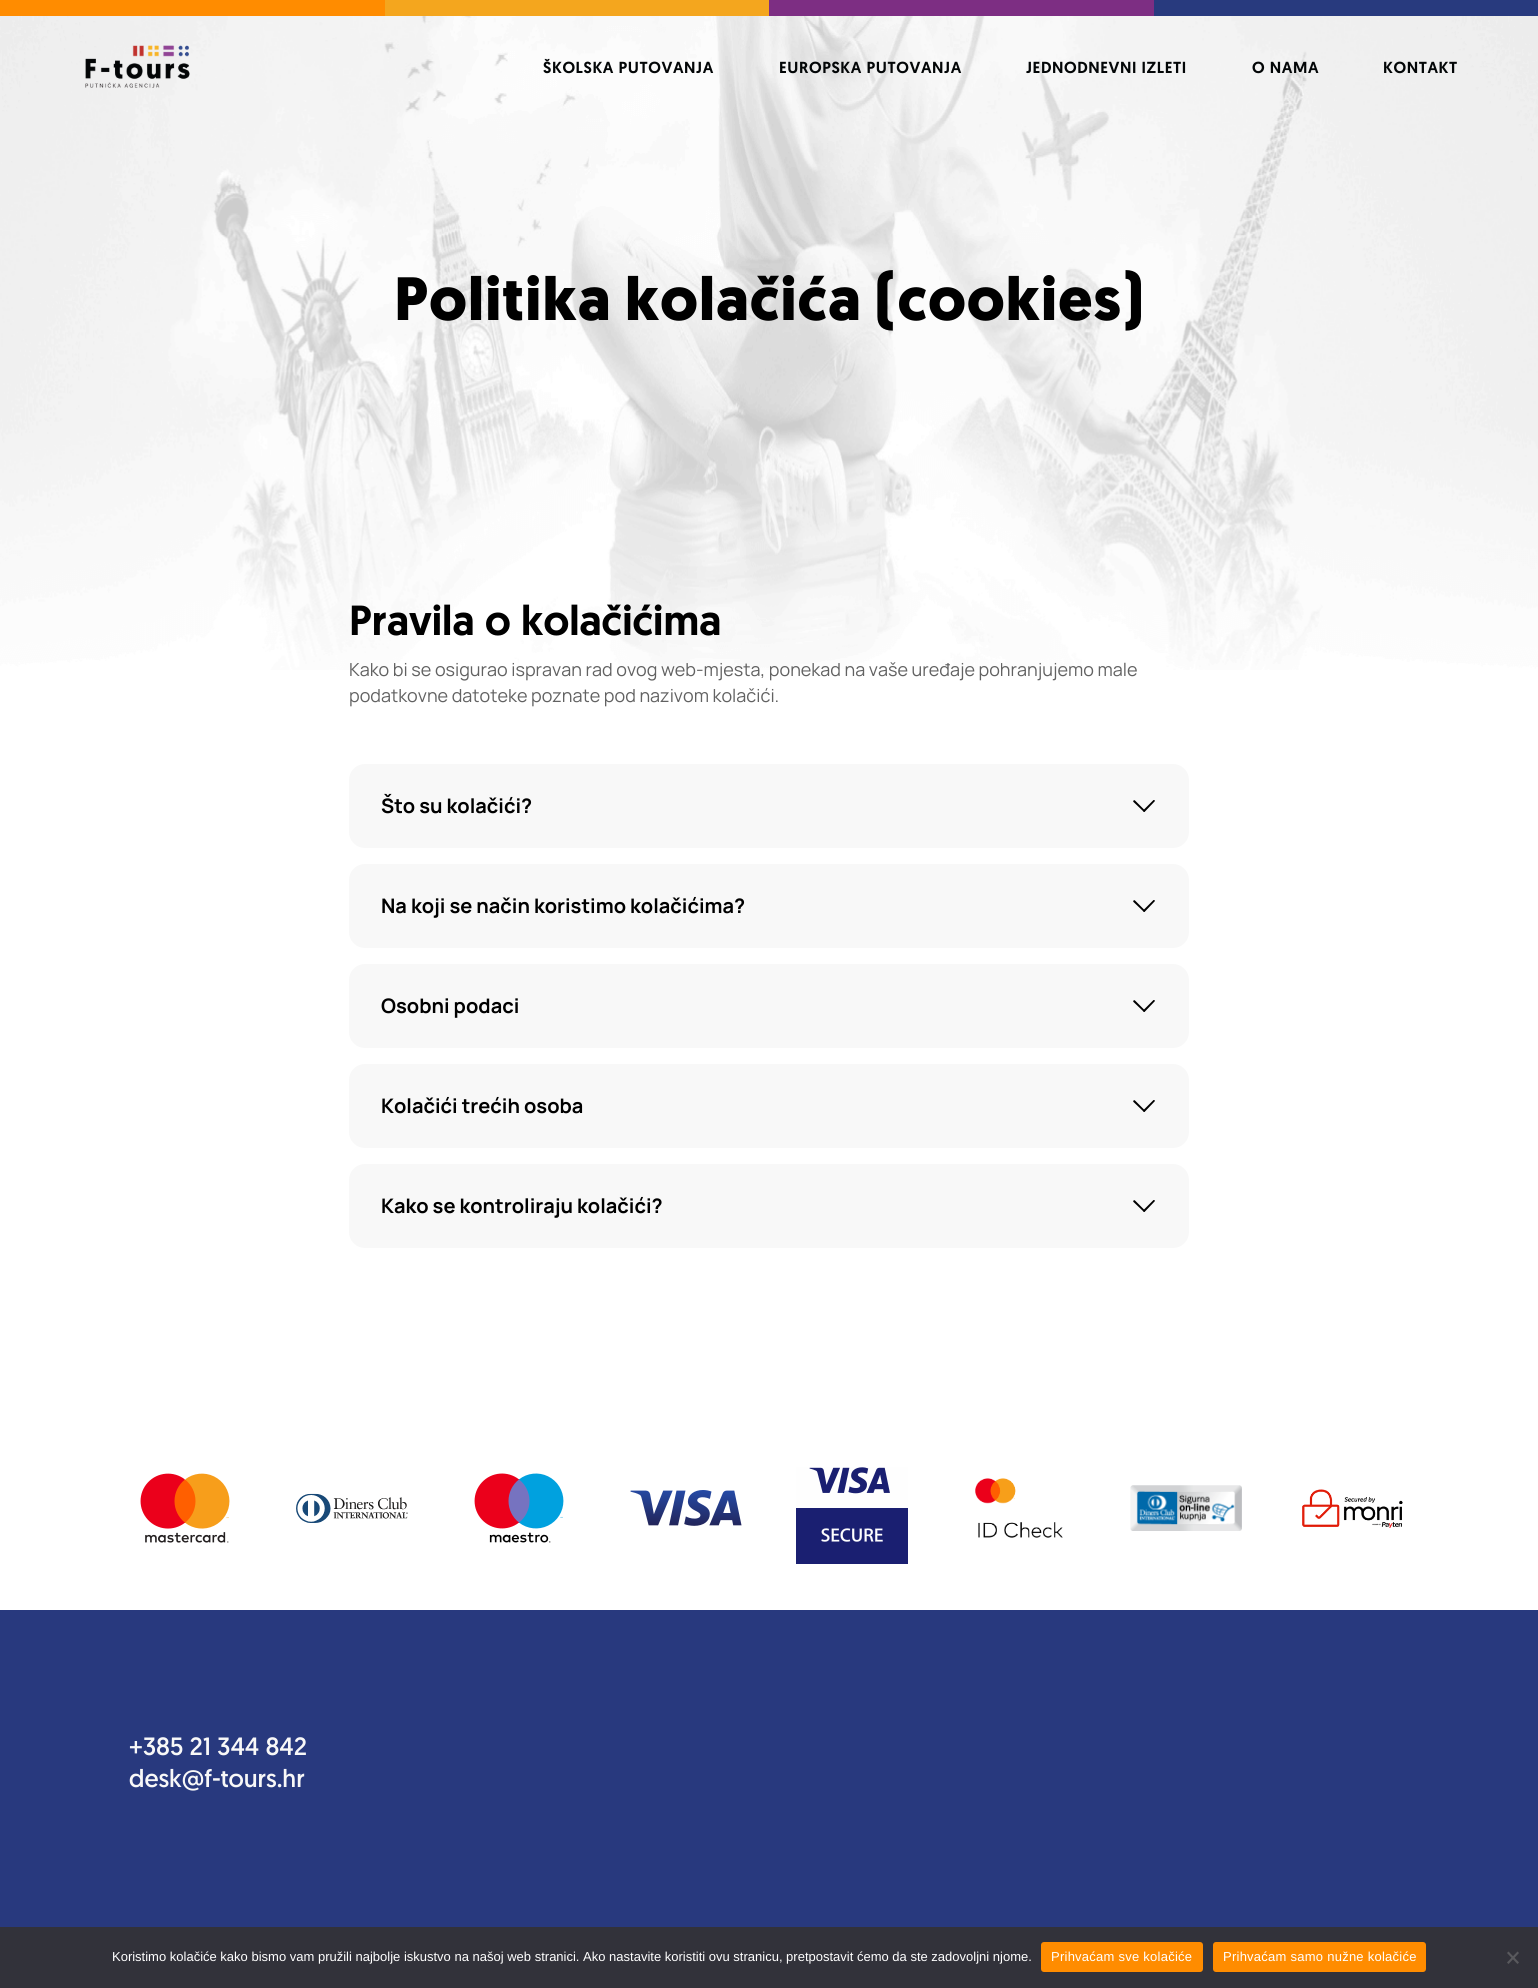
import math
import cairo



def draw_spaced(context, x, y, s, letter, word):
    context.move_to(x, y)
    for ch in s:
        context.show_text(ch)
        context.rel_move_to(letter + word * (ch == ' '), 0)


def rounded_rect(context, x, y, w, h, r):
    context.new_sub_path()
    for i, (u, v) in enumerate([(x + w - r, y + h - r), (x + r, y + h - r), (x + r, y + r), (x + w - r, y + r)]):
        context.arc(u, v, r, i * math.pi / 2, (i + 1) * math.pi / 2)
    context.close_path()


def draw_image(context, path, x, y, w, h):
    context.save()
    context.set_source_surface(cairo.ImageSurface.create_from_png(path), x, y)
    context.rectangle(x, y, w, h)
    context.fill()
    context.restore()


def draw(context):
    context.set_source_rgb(1, 1, 1)
    context.paint()
    draw_image(context, "images/1.png", 0, 16, 1538, 654)
    context.set_source_rgb(1, 140 / 255, 0)
    context.rectangle(0, 0, 385, 16)
    context.fill()
    context.set_source_rgb(244 / 255, 166 / 255, 30 / 255)
    context.rectangle(385, 0, 384, 16)
    context.fill()
    context.set_source_rgb(125 / 255, 46 / 255, 131 / 255)
    context.rectangle(769, 0, 385, 16)
    context.fill()
    context.set_source_rgb(40 / 255, 58 / 255, 126 / 255)
    context.rectangle(1154, 0, 384, 16)
    context.fill()
    draw_image(context, "images/2.png", 85, 45, 105, 43)
    context.set_source_rgb(248 / 255, 248 / 255, 248 / 255)
    rounded_rect(context, 349, 764, 840, 84, 16)
    context.fill()
    context.set_source_rgb(0, 0, 0)
    context.new_path()
    context.move_to(1135, 800.5)
    context.line_to(1145, 810.5)
    context.curve_to(1145, 811.5, 1144.5, 812, 1144, 812)
    context.line_to(1133.5, 802)
    context.curve_to(1132.5, 801, 1134, 799.5, 1135, 800.5)
    context.close_path()
    context.fill()
    context.new_path()
    context.move_to(1143.5, 810)
    context.line_to(1153.5, 800)
    context.curve_to(1154.5, 800, 1155, 800.5, 1155, 801)
    context.line_to(1145, 811.5)
    context.curve_to(1144, 812.5, 1142.5, 811, 1143.5, 810)
    context.close_path()
    context.fill()
    context.set_source_rgb(248 / 255, 248 / 255, 248 / 255)
    rounded_rect(context, 349, 864, 840, 84, 16)
    context.fill()
    context.set_source_rgb(0, 0, 0)
    context.new_path()
    context.move_to(1135, 900.5)
    context.line_to(1145, 910.5)
    context.curve_to(1145, 911.5, 1144.5, 912, 1144, 912)
    context.line_to(1133.5, 902)
    context.curve_to(1132.5, 901, 1134, 899.5, 1135, 900.5)
    context.close_path()
    context.fill()
    context.new_path()
    context.move_to(1143.5, 910)
    context.line_to(1153.5, 900)
    context.curve_to(1154.5, 900, 1155, 900.5, 1155, 901)
    context.line_to(1145, 911.5)
    context.curve_to(1144, 912.5, 1142.5, 911, 1143.5, 910)
    context.close_path()
    context.fill()
    context.set_source_rgb(248 / 255, 248 / 255, 248 / 255)
    rounded_rect(context, 349, 964, 840, 84, 16)
    context.fill()
    context.set_source_rgb(0, 0, 0)
    context.new_path()
    context.move_to(1135, 1000.5)
    context.line_to(1145, 1010.5)
    context.curve_to(1145, 1011.5, 1144.5, 1012, 1144, 1012)
    context.line_to(1133.5, 1002)
    context.curve_to(1132.5, 1001, 1134, 999.5, 1135, 1000.5)
    context.close_path()
    context.fill()
    context.new_path()
    context.move_to(1143.5, 1010)
    context.line_to(1153.5, 1000)
    context.curve_to(1154.5, 1000, 1155, 1000.5, 1155, 1001)
    context.line_to(1145, 1011.5)
    context.curve_to(1144, 1012.5, 1142.5, 1011, 1143.5, 1010)
    context.close_path()
    context.fill()
    context.set_source_rgb(248 / 255, 248 / 255, 248 / 255)
    rounded_rect(context, 349, 1064, 840, 84, 16)
    context.fill()
    context.set_source_rgb(0, 0, 0)
    context.new_path()
    context.move_to(1135, 1100.5)
    context.line_to(1145, 1110.5)
    context.curve_to(1145, 1111.5, 1144.5, 1112, 1144, 1112)
    context.line_to(1133.5, 1102)
    context.curve_to(1132.5, 1101, 1134, 1099.5, 1135, 1100.5)
    context.close_path()
    context.fill()
    context.new_path()
    context.move_to(1143.5, 1110)
    context.line_to(1153.5, 1100)
    context.curve_to(1154.5, 1100, 1155, 1100.5, 1155, 1101)
    context.line_to(1145, 1111.5)
    context.curve_to(1144, 1112.5, 1142.5, 1111, 1143.5, 1110)
    context.close_path()
    context.fill()
    context.set_source_rgb(248 / 255, 248 / 255, 248 / 255)
    rounded_rect(context, 349, 1164, 840, 84, 16)
    context.fill()
    context.set_source_rgb(0, 0, 0)
    context.new_path()
    context.move_to(1135, 1200.5)
    context.line_to(1145, 1210.5)
    context.curve_to(1145, 1211.5, 1144.5, 1212, 1144, 1212)
    context.line_to(1133.5, 1202)
    context.curve_to(1132.5, 1201, 1134, 1199.5, 1135, 1200.5)
    context.close_path()
    context.fill()
    context.new_path()
    context.move_to(1143.5, 1210)
    context.line_to(1153.5, 1200)
    context.curve_to(1154.5, 1200, 1155, 1200.5, 1155, 1201)
    context.line_to(1145, 1211.5)
    context.curve_to(1144, 1212.5, 1142.5, 1211, 1143.5, 1210)
    context.close_path()
    context.fill()
    draw_image(context, "images/3.png", 140, 1473, 90, 70)
    draw_image(context, "images/4.png", 296, 1493, 112, 30)
    draw_image(context, "images/5.png", 474, 1473, 90, 70)
    draw_image(context, "images/6.png", 630, 1490, 112, 36)
    draw_image(context, "images/7.png", 796, 1467, 112, 97)
    draw_image(context, "images/8.png", 975, 1478, 88, 60)
    draw_image(context, "images/9.png", 1130, 1485, 112, 46)
    draw_image(context, "images/10.png", 1302, 1489, 101, 39)
    context.set_source_rgb(40 / 255, 57 / 255, 126 / 255)
    context.rectangle(0, 1610, 1538, 317)
    context.fill()
    context.set_source_rgb(50 / 255, 50 / 255, 58 / 255)
    context.rectangle(0, 1927, 1538, 61)
    context.fill()
    context.set_source_rgb(1, 140 / 255, 0)
    rounded_rect(context, 1041, 1942, 162, 30, 3)
    context.fill()
    rounded_rect(context, 1213, 1942, 213, 30, 3)
    context.fill()
    context.set_source_rgb(89 / 255, 89 / 255, 93 / 255)
    context.new_path()
    context.move_to(1517.5, 1951.5)
    context.line_to(1519, 1953)
    context.line_to(1508.5, 1964)
    context.line_to(1507, 1962.5)
    context.close_path()
    context.fill()
    context.new_path()
    context.move_to(1507, 1953)
    context.line_to(1508.5, 1951.5)
    context.line_to(1519, 1962.5)
    context.line_to(1517.5, 1964)
    context.close_path()
    context.fill()
    context.select_font_face("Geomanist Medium")
    context.set_font_size(16)
    context.set_source_rgb(3 / 255, 6 / 255, 7 / 255)
    draw_spaced(context, 543, 73, "ŠKOLSKA PUTOVANJA", 0.6, 0)
    draw_spaced(context, 779, 73, "EUROPSKA PUTOVANJA", 0.6, 0)
    draw_spaced(context, 1026, 73, "JEDNODNEVNI IZLETI", 0.6, 0)
    draw_spaced(context, 1252, 73, "O NAMA", 0.6, 0)
    draw_spaced(context, 1383, 73, "KONTAKT", 0.6, 0)
    context.select_font_face("Geomanist", cairo.FontSlant.NORMAL, cairo.FontWeight.BOLD)
    context.set_font_size(61)
    context.set_source_rgb(0, 0, 0)
    draw_spaced(context, 394, 320, "Politika kolačića (cookies)", 1.25, 0)
    context.select_font_face("Geomanist Medium")
    context.set_font_size(42)
    context.move_to(349, 635)
    context.show_text("Pravila o kolačićima")
    context.select_font_face("Manrope")
    context.set_font_size(18)
    context.set_source_rgb(98 / 255, 98 / 255, 98 / 255)
    context.move_to(349, 676)
    context.show_text("Kako bi se osigurao ispravan rad ovog web-mjesta, ponekad na vaše uređaje pohranjujemo male")
    context.move_to(349, 702)
    context.show_text("podatkovne datoteke poznate pod nazivom kolačići.")
    context.select_font_face("Manrope", cairo.FontSlant.NORMAL, cairo.FontWeight.BOLD)
    context.set_font_size(20)
    context.set_source_rgb(0, 0, 0)
    context.move_to(381, 813)
    context.show_text("Što su kolačići?")
    context.move_to(381, 913)
    context.show_text("Na koji se način koristimo kolačićima?")
    context.move_to(381, 1013)
    context.show_text("Osobni podaci")
    context.move_to(381, 1113)
    context.show_text("Kolačići trećih osoba")
    context.move_to(381, 1213)
    context.show_text("Kako se kontroliraju kolačići?")
    context.select_font_face("Geomanist")
    context.set_font_size(25)
    context.set_source_rgb(248 / 255, 248 / 255, 248 / 255)
    context.move_to(129, 1755)
    context.show_text("+385 21 344 842")
    context.move_to(129, 1787)
    context.show_text("desk@f-tours.hr")
    context.select_font_face("Liberation Sans")
    context.set_font_size(13)
    context.set_source_rgb(1, 1, 1)
    context.move_to(112, 1961)
    context.show_text("Koristimo kolačiće kako bismo vam pružili najbolje iskustvo na našoj web stranici. Ako nastavite koristiti ovu stranicu, pretpostavit ćemo da ste zadovoljni njome.")
    draw_spaced(context, 1051, 1961, "Prihvaćam sve kolačiće", 0.25, 0)
    draw_spaced(context, 1223, 1961, "Prihvaćam samo nužne kolačiće", 0.25, 0)


surface = cairo.ImageSurface(cairo.Format.RGB24, 1538, 1988)
context = cairo.Context(surface)
options = cairo.FontOptions()
options.set_hint_metrics(cairo.HintMetrics.OFF)
options.set_hint_style(cairo.HintStyle.NONE)
context.set_font_options(options)
context.set_miter_limit(4)
draw(context)
surface.write_to_png("out.png")
